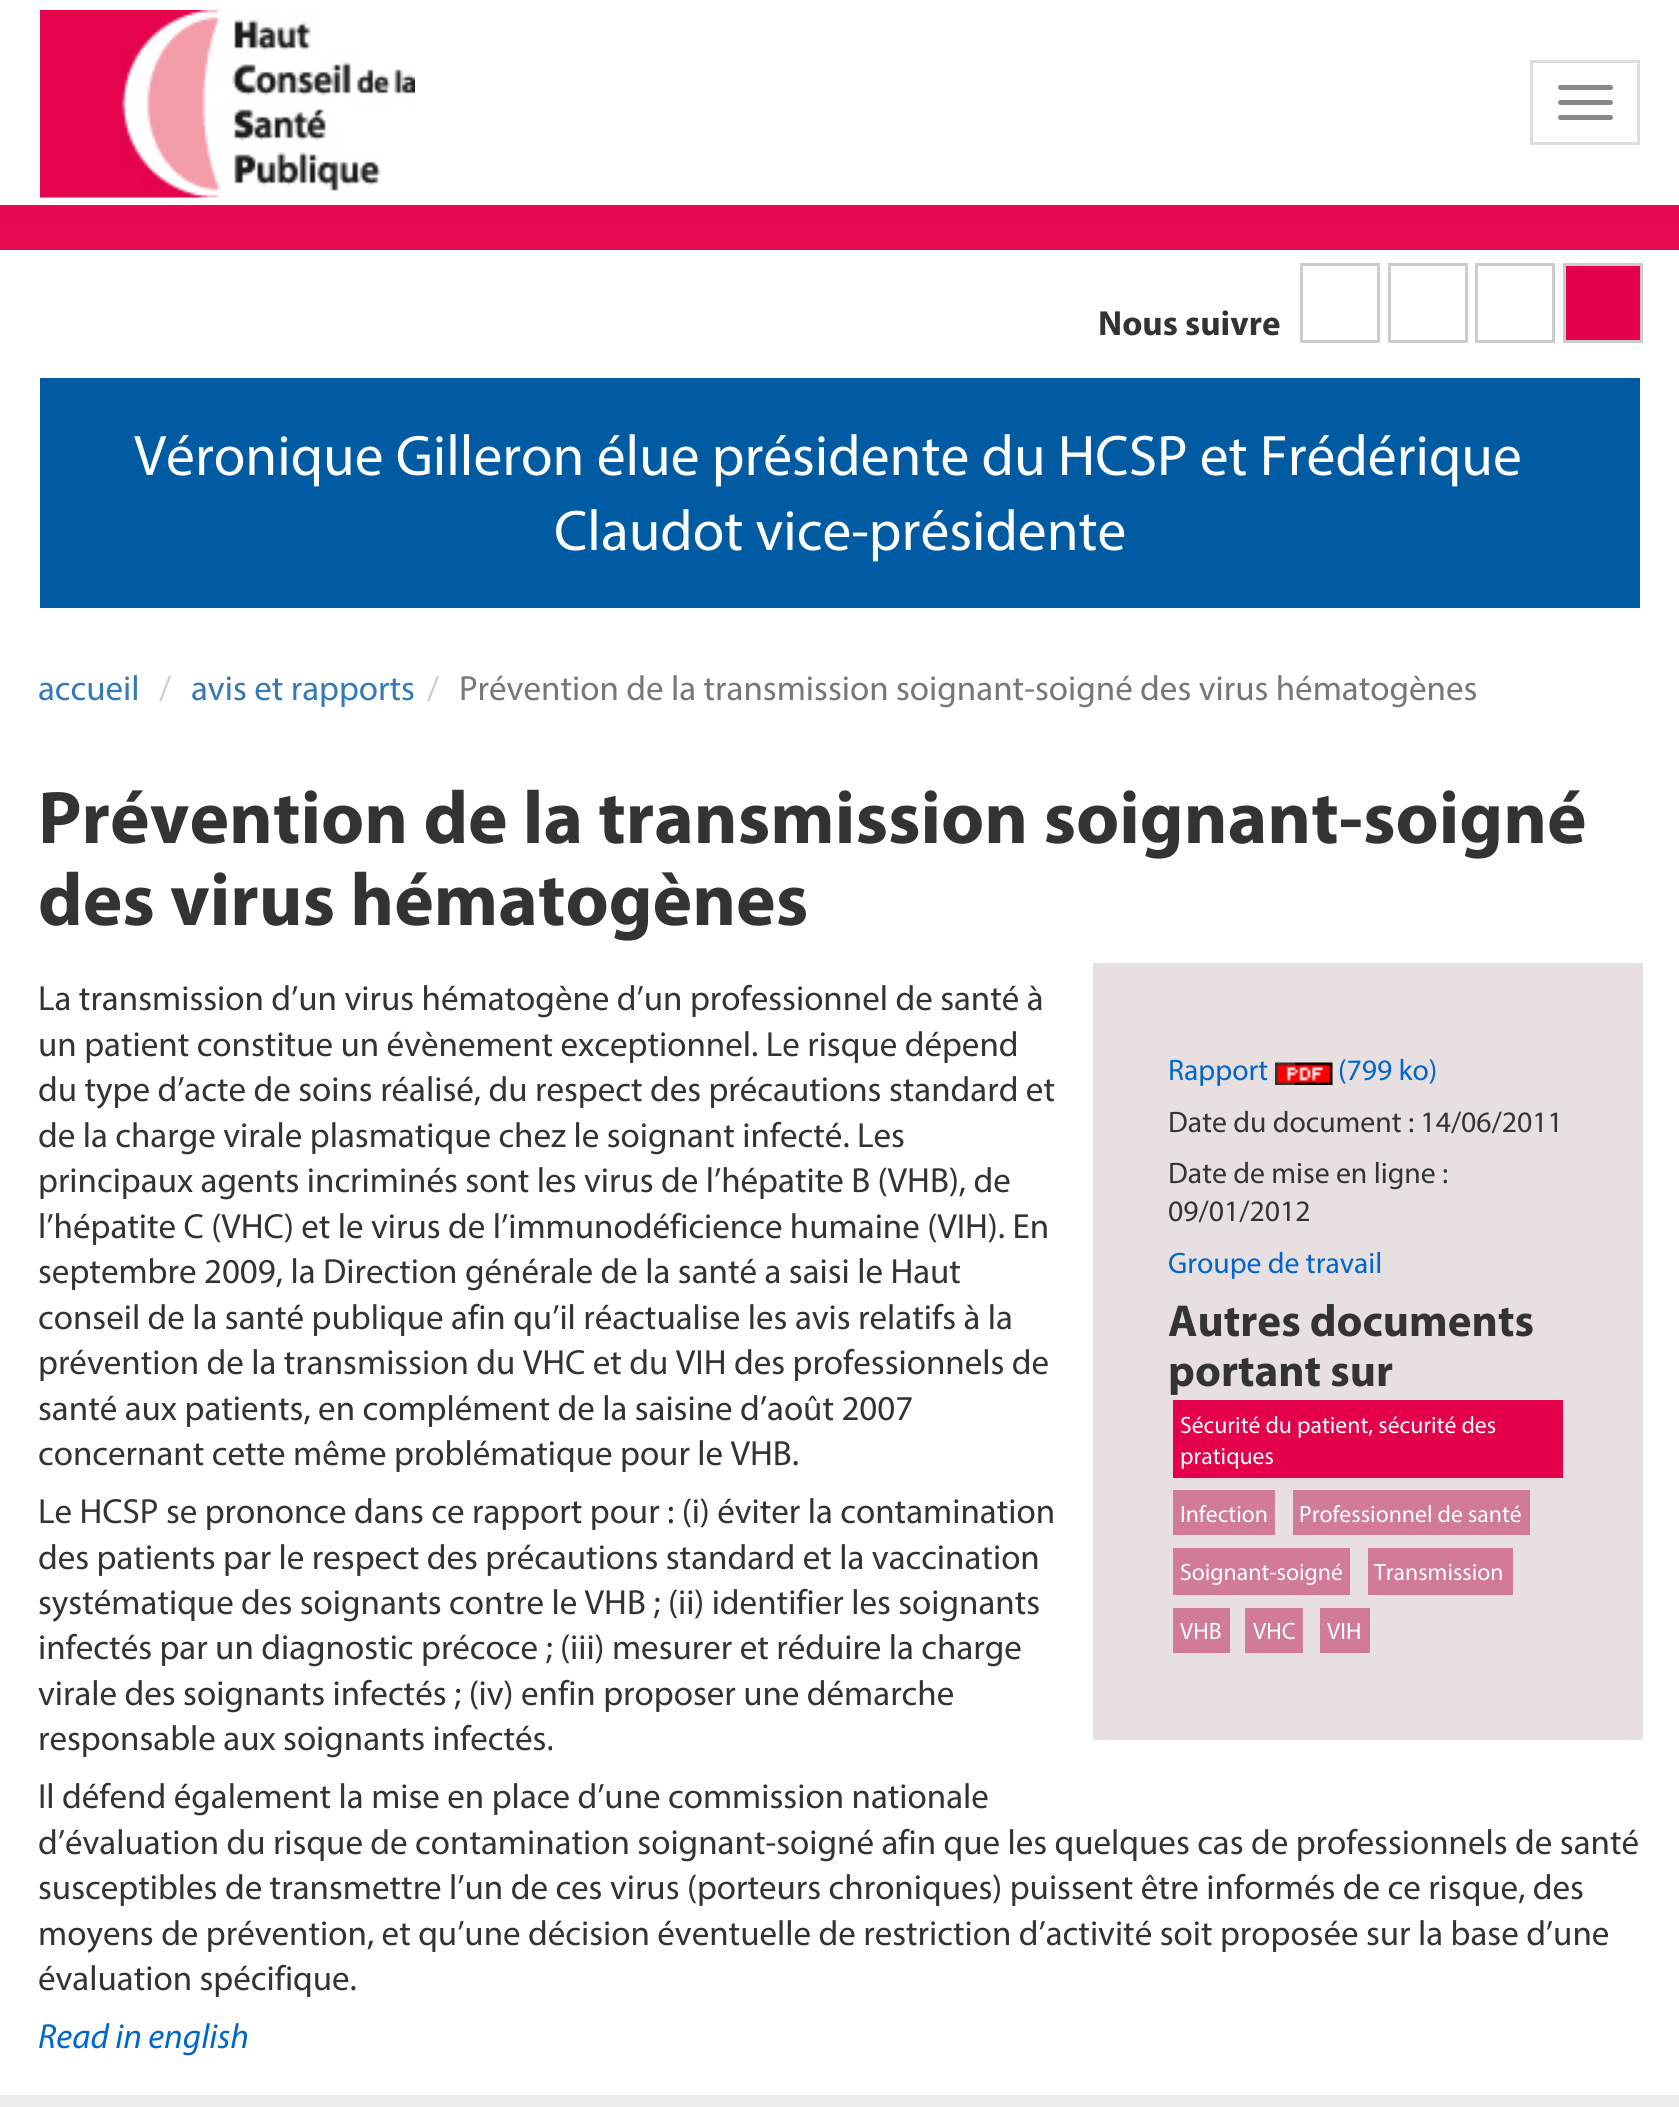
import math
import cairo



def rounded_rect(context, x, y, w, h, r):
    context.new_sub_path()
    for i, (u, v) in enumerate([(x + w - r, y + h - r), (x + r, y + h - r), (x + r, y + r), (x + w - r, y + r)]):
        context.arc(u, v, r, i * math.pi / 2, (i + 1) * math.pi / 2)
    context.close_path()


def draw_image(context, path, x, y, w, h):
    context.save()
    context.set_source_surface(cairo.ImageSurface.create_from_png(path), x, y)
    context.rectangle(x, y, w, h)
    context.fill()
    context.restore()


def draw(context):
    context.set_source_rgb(1, 1, 1)
    context.paint()
    draw_image(context, "images/1.png", 0, 205, 1679, 45)
    draw_image(context, "images/2.png", 40, 10, 375, 188)
    context.rectangle(1531.5, 61.5, 107, 82)
    context.set_source_rgb(221 / 255, 221 / 255, 221 / 255)
    context.set_line_width(3)
    context.stroke()
    context.set_source_rgb(136 / 255, 136 / 255, 136 / 255)
    rounded_rect(context, 1558, 85, 55, 5, 2.5)
    context.fill()
    rounded_rect(context, 1558, 100, 55, 5, 2.5)
    context.fill()
    rounded_rect(context, 1558, 115, 55, 5, 2.5)
    context.fill()
    context.rectangle(1301.5, 264.5, 77, 77)
    context.set_source_rgb(204 / 255, 204 / 255, 204 / 255)
    context.stroke()
    context.rectangle(1389.5, 264.5, 77, 77)
    context.stroke()
    context.rectangle(1476.5, 264.5, 77, 77)
    context.stroke()
    context.set_source_rgb(229 / 255, 0, 75 / 255)
    context.rectangle(1564.5, 264.5, 77, 77)
    context.fill_preserve()
    context.set_source_rgb(204 / 255, 204 / 255, 204 / 255)
    context.stroke()
    context.set_source_rgb(0, 91 / 255, 162 / 255)
    context.rectangle(40, 378, 1600, 230)
    context.fill()
    context.set_source_rgb(232 / 255, 224 / 255, 224 / 255)
    context.rectangle(1093, 963, 550, 777)
    context.fill()
    draw_image(context, "images/3.png", 1275, 1062, 58, 23)
    context.set_source_rgb(229 / 255, 0, 75 / 255)
    context.rectangle(1173, 1400, 390, 78)
    context.fill()
    context.set_source_rgb(209 / 255, 123 / 255, 153 / 255)
    context.rectangle(1173, 1490, 102, 45)
    context.fill()
    context.rectangle(1293, 1490, 237, 45)
    context.fill()
    context.rectangle(1173, 1548, 177, 47)
    context.fill()
    context.rectangle(1368, 1548, 145, 47)
    context.fill()
    context.rectangle(1173, 1608, 57, 45)
    context.fill()
    context.rectangle(1245, 1608, 58, 45)
    context.fill()
    context.rectangle(1320, 1608, 50, 45)
    context.fill()
    context.set_source_rgb(238 / 255, 238 / 255, 238 / 255)
    context.rectangle(0, 2095, 1679, 12)
    context.fill()
    context.select_font_face("Myriad", cairo.FontSlant.NORMAL, cairo.FontWeight.BOLD)
    context.set_font_size(35)
    context.set_source_rgb(51 / 255, 51 / 255, 51 / 255)
    context.move_to(1098, 335)
    context.show_text("Nous suivre")
    context.select_font_face("Myriad")
    context.set_font_size(57.5)
    context.set_source_rgb(1, 1, 1)
    context.move_to(134, 475)
    context.show_text("Véronique Gilleron élue présidente du HCSP et Frédérique")
    context.move_to(554, 550)
    context.show_text("Claudot vice-présidente")
    context.set_font_size(35)
    context.set_source_rgb(51 / 255, 122 / 255, 183 / 255)
    context.move_to(38, 700)
    context.show_text("accueil")
    context.set_source_rgb(204 / 255, 204 / 255, 204 / 255)
    context.move_to(159, 700)
    context.show_text("/")
    context.set_source_rgb(51 / 255, 122 / 255, 183 / 255)
    context.move_to(191, 700)
    context.show_text("avis et rapports")
    context.set_source_rgb(204 / 255, 204 / 255, 204 / 255)
    context.move_to(427, 700)
    context.show_text("/")
    context.set_source_rgb(119 / 255, 119 / 255, 119 / 255)
    context.move_to(459, 700)
    context.show_text("Prévention de la transmission soignant-soigné des virus hématogènes")
    context.select_font_face("Myriad", cairo.FontSlant.NORMAL, cairo.FontWeight.BOLD)
    context.set_font_size(75)
    context.set_source_rgb(51 / 255, 51 / 255, 51 / 255)
    context.move_to(38, 843)
    context.show_text("Prévention de la transmission soignant-soigné")
    context.move_to(38, 925)
    context.show_text("des virus hématogènes")
    context.select_font_face("Myriad")
    context.set_font_size(35)
    context.move_to(38, 1010)
    context.show_text("La transmission d’un virus hématogène d’un professionnel de santé à")
    context.move_to(38, 1056)
    context.show_text("un patient constitue un évènement exceptionnel. Le risque dépend")
    context.move_to(38, 1101)
    context.show_text("du type d’acte de soins réalisé, du respect des précautions standard et")
    context.move_to(38, 1147)
    context.show_text("de la charge virale plasmatique chez le soignant infecté. Les")
    context.move_to(38, 1192)
    context.show_text("principaux agents incriminés sont les virus de l’hépatite B (VHB), de")
    context.move_to(38, 1238)
    context.show_text("l’hépatite C (VHC) et le virus de l’immunodéficience humaine (VIH). En")
    context.move_to(38, 1283)
    context.show_text("septembre 2009, la Direction générale de la santé a saisi le Haut")
    context.move_to(38, 1329)
    context.show_text("conseil de la santé publique afin qu’il réactualise les avis relatifs à la")
    context.move_to(38, 1374)
    context.show_text("prévention de la transmission du VHC et du VIH des professionnels de")
    context.move_to(38, 1420)
    context.show_text("santé aux patients, en complément de la saisine d’août 2007")
    context.move_to(38, 1465)
    context.show_text("concernant cette même problématique pour le VHB.")
    context.move_to(38, 1523)
    context.show_text("Le HCSP se prononce dans ce rapport pour : (i) éviter la contamination")
    context.move_to(38, 1569)
    context.show_text("des patients par le respect des précautions standard et la vaccination")
    context.move_to(38, 1614)
    context.show_text("systématique des soignants contre le VHB ; (ii) identifier les soignants")
    context.move_to(38, 1659)
    context.show_text("infectés par un diagnostic précoce ; (iii) mesurer et réduire la charge")
    context.move_to(38, 1705)
    context.show_text("virale des soignants infectés ; (iv) enfin proposer une démarche")
    context.move_to(38, 1750)
    context.show_text("responsable aux soignants infectés.")
    context.move_to(38, 1808)
    context.show_text("Il défend également la mise en place d’une commission nationale")
    context.move_to(38, 1854)
    context.show_text("d’évaluation du risque de contamination soignant-soigné afin que les quelques cas de professionnels de santé")
    context.move_to(38, 1899)
    context.show_text("susceptibles de transmettre l’un de ces virus (porteurs chroniques) puissent être informés de ce risque, des")
    context.move_to(38, 1945)
    context.show_text("moyens de prévention, et qu’une décision éventuelle de restriction d’activité soit proposée sur la base d’une")
    context.move_to(38, 1990)
    context.show_text("évaluation spécifique.")
    context.select_font_face("Myriad", cairo.FontSlant.ITALIC)
    context.set_source_rgb(0, 102 / 255, 204 / 255)
    context.move_to(38, 2048)
    context.show_text("Read in english")
    context.select_font_face("Myriad")
    context.set_font_size(29.75)
    context.move_to(1168, 1080)
    context.show_text("Rapport")
    context.move_to(1338, 1080)
    context.show_text("(799 ko)")
    context.set_source_rgb(51 / 255, 51 / 255, 51 / 255)
    context.move_to(1168, 1132)
    context.show_text("Date du document : 14/06/2011")
    context.move_to(1168, 1183)
    context.show_text("Date de mise en ligne :")
    context.move_to(1168, 1221)
    context.show_text("09/01/2012")
    context.set_source_rgb(0, 102 / 255, 204 / 255)
    context.move_to(1168, 1273)
    context.show_text("Groupe de travail")
    context.select_font_face("Myriad", cairo.FontSlant.NORMAL, cairo.FontWeight.BOLD)
    context.set_font_size(45)
    context.set_source_rgb(51 / 255, 51 / 255, 51 / 255)
    context.move_to(1168, 1336)
    context.show_text("Autres documents")
    context.move_to(1168, 1386)
    context.show_text("portant sur")
    context.select_font_face("Myriad")
    context.set_font_size(23.75)
    context.set_source_rgb(1, 1, 1)
    context.move_to(1180, 1433)
    context.show_text("Sécurité du patient, sécurité des")
    context.move_to(1180, 1464)
    context.show_text("pratiques")
    context.move_to(1180, 1522)
    context.show_text("Infection")
    context.move_to(1299, 1522)
    context.show_text("Professionnel de santé")
    context.move_to(1180, 1580)
    context.show_text("Soignant-soigné")
    context.move_to(1374, 1580)
    context.show_text("Transmission")
    context.move_to(1180, 1639)
    context.show_text("VHB")
    context.move_to(1253, 1639)
    context.show_text("VHC")
    context.move_to(1327, 1639)
    context.show_text("VIH")


surface = cairo.ImageSurface(cairo.Format.RGB24, 1679, 2107)
context = cairo.Context(surface)
options = cairo.FontOptions()
options.set_hint_metrics(cairo.HintMetrics.OFF)
options.set_hint_style(cairo.HintStyle.NONE)
context.set_font_options(options)
context.set_miter_limit(4)
draw(context)
surface.write_to_png("out.png")
